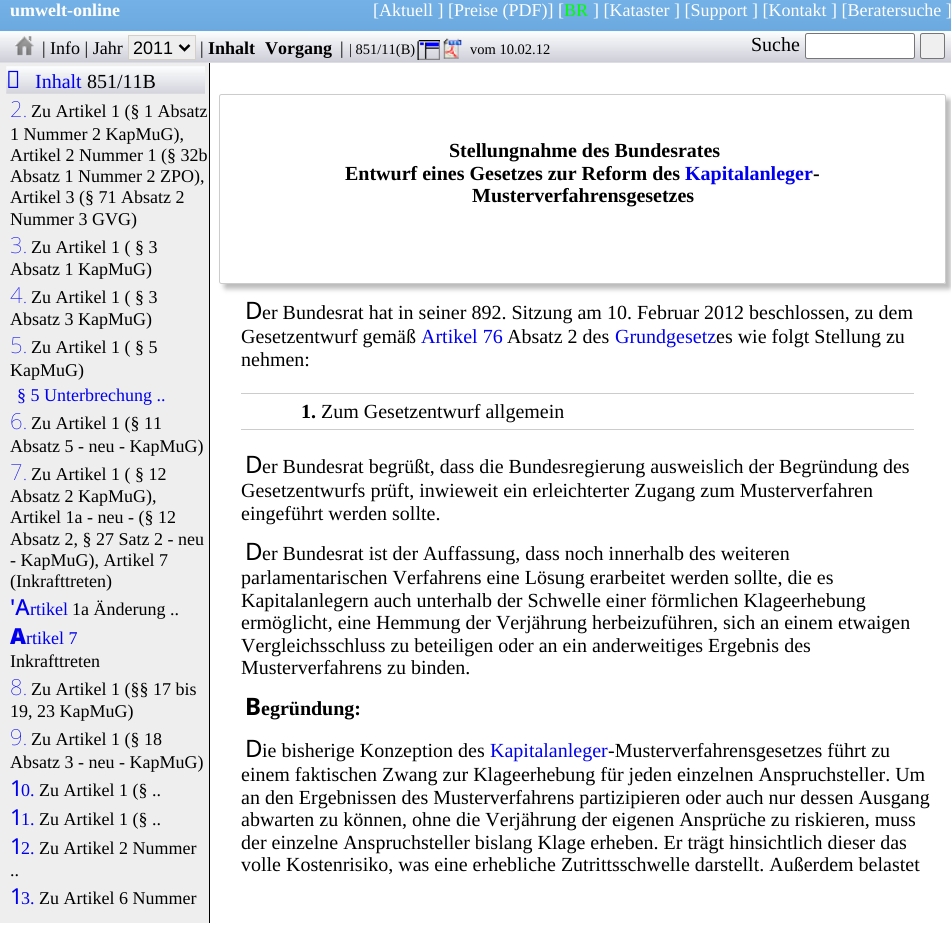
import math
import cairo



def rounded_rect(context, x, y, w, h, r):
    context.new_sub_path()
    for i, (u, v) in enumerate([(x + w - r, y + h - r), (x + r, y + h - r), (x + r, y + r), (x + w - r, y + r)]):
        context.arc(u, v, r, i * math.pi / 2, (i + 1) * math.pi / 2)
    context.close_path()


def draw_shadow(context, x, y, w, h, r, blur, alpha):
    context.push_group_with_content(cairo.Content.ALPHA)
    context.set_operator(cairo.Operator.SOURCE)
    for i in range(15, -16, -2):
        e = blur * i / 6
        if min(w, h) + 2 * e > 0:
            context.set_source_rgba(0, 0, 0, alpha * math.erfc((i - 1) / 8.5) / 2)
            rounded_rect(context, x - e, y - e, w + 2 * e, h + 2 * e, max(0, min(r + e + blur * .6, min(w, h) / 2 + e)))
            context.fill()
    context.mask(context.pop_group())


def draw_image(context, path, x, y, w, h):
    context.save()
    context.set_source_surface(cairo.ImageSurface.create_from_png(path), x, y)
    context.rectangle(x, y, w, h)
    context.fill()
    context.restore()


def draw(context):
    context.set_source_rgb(1, 1, 1)
    context.paint()
    draw_image(context, "images/1.png", 0, 0, 951, 31)
    context.set_source_rgb(238 / 255, 238 / 255, 238 / 255)
    context.rectangle(0, 31, 951, 32)
    context.fill()
    draw_image(context, "images/2.png", 0, 31, 951, 32)
    draw_image(context, "images/3.png", 15, 36, 19, 20)
    context.rectangle(128.5, 35.5, 67, 24)
    context.fill_preserve()
    context.set_source_rgb(212 / 255, 208 / 255, 200 / 255)
    context.set_line_width(1)
    context.stroke()
    context.new_path()
    context.move_to(179.5, 45)
    context.line_to(184.5, 50)
    context.line_to(189.5, 45)
    context.set_source_rgb(0, 0, 0)
    context.set_line_width(2.5)
    context.stroke()
    draw_image(context, "images/4.png", 417, 40, 23, 20)
    draw_image(context, "images/5.png", 443, 38, 19, 21)
    context.set_source_rgb(1, 1, 1)
    rounded_rect(context, 805.5, 33.5, 109, 25, 2)
    context.fill_preserve()
    context.set_source_rgb(118 / 255, 118 / 255, 118 / 255)
    context.set_line_width(1)
    context.stroke()
    context.set_source_rgb(239 / 255, 239 / 255, 239 / 255)
    rounded_rect(context, 920.5, 33.5, 24, 25, 2)
    context.fill_preserve()
    context.set_source_rgb(118 / 255, 118 / 255, 118 / 255)
    context.stroke()
    context.set_source_rgb(238 / 255, 238 / 255, 238 / 255)
    context.rectangle(0, 63, 209, 860)
    context.fill()
    context.set_source_rgb(0, 0, 0)
    context.rectangle(209, 63, 1, 860)
    context.fill()
    draw_image(context, "images/6.png", 6, 66, 199, 28)
    context.save()
    context.set_fill_rule(cairo.FillRule.EVEN_ODD)
    context.new_path()
    context.move_to(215, 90)
    context.line_to(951, 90)
    context.line_to(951, 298)
    context.line_to(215, 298)
    context.close_path()
    context.move_to(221.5, 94)
    context.line_to(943.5, 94)
    context.curve_to(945, 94, 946, 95, 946, 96.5)
    context.line_to(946, 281.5)
    context.curve_to(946, 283, 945, 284, 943.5, 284)
    context.line_to(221.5, 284)
    context.curve_to(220, 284, 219, 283, 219, 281.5)
    context.line_to(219, 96.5)
    context.curve_to(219, 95, 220, 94, 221.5, 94)
    context.close_path()
    context.clip()
    context.set_source_rgb(187 / 255, 187 / 255, 187 / 255)
    draw_shadow(context, 224, 99, 727, 190, 2.5, 2.5, 1)
    context.restore()
    rounded_rect(context, 219.5, 94.5, 726, 189, 2)
    context.set_source_rgb(204 / 255, 204 / 255, 204 / 255)
    context.stroke()
    context.rectangle(241, 393, 673, 1)
    context.fill()
    context.rectangle(241, 429, 673, 1)
    context.fill()
    context.select_font_face("Liberation Serif", cairo.FontSlant.NORMAL, cairo.FontWeight.BOLD)
    context.set_font_size(18)
    context.set_source_rgb(1, 1, 1)
    context.move_to(10, 16)
    context.show_text("umwelt-online")
    context.select_font_face("Liberation Serif")
    context.move_to(373, 16)
    context.show_text("[Aktuell ] [Preise (PDF)] [")
    context.set_source_rgb(0, 1, 0)
    context.move_to(564, 16)
    context.show_text("BR")
    context.set_source_rgb(1, 1, 1)
    context.move_to(593, 16)
    context.show_text("] [Kataster ] [Support ] [Kontakt ] [Beratersuche ]")
    context.set_source_rgb(0, 0, 0)
    context.move_to(42, 54)
    context.show_text("| Info | Jahr")
    context.select_font_face("Liberation Sans")
    context.move_to(133, 54)
    context.show_text("2011")
    context.select_font_face("Liberation Serif")
    context.move_to(200, 54)
    context.show_text("|")
    context.select_font_face("Liberation Serif", cairo.FontSlant.NORMAL, cairo.FontWeight.BOLD)
    context.move_to(208, 54)
    context.show_text("Inhalt")
    context.move_to(265, 54)
    context.show_text("Vorgang")
    context.select_font_face("Liberation Serif")
    context.move_to(340, 54)
    context.show_text("|")
    context.set_font_size(14.5)
    context.move_to(349, 54)
    context.show_text("| 851/11(B)")
    context.move_to(470, 54)
    context.show_text("vom 10.02.12")
    context.set_font_size(20)
    context.move_to(751, 51)
    context.show_text("Suche")
    context.select_font_face("Noto Sans")
    context.set_font_size(24)
    context.set_source_rgb(0, 0, 238 / 255)
    context.move_to(6, 88)
    context.show_text("←")
    context.select_font_face("Liberation Serif")
    context.set_font_size(20)
    context.move_to(35, 88)
    context.show_text("Inhalt")
    context.set_source_rgb(0, 0, 0)
    context.move_to(87, 88)
    context.show_text("851/11B")
    context.select_font_face("Noto Sans Thin")
    context.set_font_size(22)
    context.set_source_rgb(0, 0, 238 / 255)
    context.move_to(10, 117)
    context.show_text("2.")
    context.select_font_face("Liberation Serif")
    context.set_font_size(18)
    context.set_source_rgb(0, 0, 0)
    context.move_to(31, 117)
    context.show_text("Zu Artikel 1 (§ 1 Absatz")
    context.move_to(10, 140)
    context.show_text("1 Nummer 2 KapMuG),")
    context.move_to(10, 161)
    context.show_text("Artikel 2 Nummer 1 (§ 32b")
    context.move_to(10, 182)
    context.show_text("Absatz 1 Nummer 2 ZPO),")
    context.move_to(10, 203)
    context.show_text("Artikel 3 (§ 71 Absatz 2")
    context.move_to(10, 225)
    context.show_text("Nummer 3 GVG)")
    context.select_font_face("Noto Sans Thin")
    context.set_font_size(22)
    context.set_source_rgb(0, 0, 238 / 255)
    context.move_to(10, 253)
    context.show_text("3.")
    context.select_font_face("Liberation Serif")
    context.set_font_size(18)
    context.set_source_rgb(0, 0, 0)
    context.move_to(31, 253)
    context.show_text("Zu Artikel 1 ( § 3")
    context.move_to(10, 275)
    context.show_text("Absatz 1 KapMuG)")
    context.select_font_face("Noto Sans Thin")
    context.set_font_size(22)
    context.set_source_rgb(0, 0, 238 / 255)
    context.move_to(10, 303)
    context.show_text("4.")
    context.select_font_face("Liberation Serif")
    context.set_font_size(18)
    context.set_source_rgb(0, 0, 0)
    context.move_to(31, 303)
    context.show_text("Zu Artikel 1 ( § 3")
    context.move_to(10, 325)
    context.show_text("Absatz 3 KapMuG)")
    context.select_font_face("Noto Sans Thin")
    context.set_font_size(22)
    context.set_source_rgb(0, 0, 238 / 255)
    context.move_to(10, 353)
    context.show_text("5.")
    context.select_font_face("Liberation Serif")
    context.set_font_size(18)
    context.set_source_rgb(0, 0, 0)
    context.move_to(31, 353)
    context.show_text("Zu Artikel 1 ( § 5")
    context.move_to(10, 376)
    context.show_text("KapMuG)")
    context.set_source_rgb(0, 0, 238 / 255)
    context.move_to(17, 401)
    context.show_text("§ 5 Unterbrechung ..")
    context.select_font_face("Noto Sans Thin")
    context.set_font_size(22)
    context.move_to(10, 429)
    context.show_text("6.")
    context.select_font_face("Liberation Serif")
    context.set_font_size(18)
    context.set_source_rgb(0, 0, 0)
    context.move_to(31, 429)
    context.show_text("Zu Artikel 1 (§ 11")
    context.move_to(10, 452)
    context.show_text("Absatz 5 - neu - KapMuG)")
    context.select_font_face("Noto Sans Thin")
    context.set_font_size(22)
    context.set_source_rgb(0, 0, 238 / 255)
    context.move_to(10, 480)
    context.show_text("7.")
    context.select_font_face("Liberation Serif")
    context.set_font_size(18)
    context.set_source_rgb(0, 0, 0)
    context.move_to(31, 480)
    context.show_text("Zu Artikel 1 ( § 12")
    context.move_to(10, 502)
    context.show_text("Absatz 2 KapMuG),")
    context.move_to(10, 523)
    context.show_text("Artikel 1a - neu - (§ 12")
    context.move_to(10, 545)
    context.show_text("Absatz 2, § 27 Satz 2 - neu")
    context.move_to(10, 566)
    context.show_text("- KapMuG), Artikel 7")
    context.move_to(10, 587)
    context.show_text("(Inkrafttreten)")
    context.select_font_face("Noto Sans Medium")
    context.set_font_size(22)
    context.set_source_rgb(0, 0, 238 / 255)
    context.move_to(10, 615)
    context.show_text("'A")
    context.select_font_face("Liberation Serif")
    context.set_font_size(18)
    context.move_to(30, 615)
    context.show_text("rtikel")
    context.set_source_rgb(0, 0, 0)
    context.move_to(72, 615)
    context.show_text("1a Änderung ..")
    context.select_font_face("Noto Sans Black")
    context.set_font_size(22)
    context.set_source_rgb(0, 0, 238 / 255)
    context.move_to(10, 644)
    context.show_text("A")
    context.select_font_face("Liberation Serif")
    context.set_font_size(18)
    context.move_to(26, 644)
    context.show_text("rtikel 7")
    context.set_source_rgb(0, 0, 0)
    context.move_to(10, 667)
    context.show_text("Inkrafttreten")
    context.select_font_face("Noto Sans Thin")
    context.set_font_size(22)
    context.set_source_rgb(0, 0, 238 / 255)
    context.move_to(10, 695)
    context.show_text("8.")
    context.select_font_face("Liberation Serif")
    context.set_font_size(18)
    context.set_source_rgb(0, 0, 0)
    context.move_to(31, 695)
    context.show_text("Zu Artikel 1 (§§ 17 bis")
    context.move_to(10, 717)
    context.show_text("19, 23 KapMuG)")
    context.select_font_face("Noto Sans Thin")
    context.set_font_size(22)
    context.set_source_rgb(0, 0, 238 / 255)
    context.move_to(10, 745)
    context.show_text("9.")
    context.select_font_face("Liberation Serif")
    context.set_font_size(18)
    context.set_source_rgb(0, 0, 0)
    context.move_to(31, 745)
    context.show_text("Zu Artikel 1 (§ 18")
    context.move_to(10, 768)
    context.show_text("Absatz 3 - neu - KapMuG)")
    context.select_font_face("Noto Sans")
    context.set_font_size(22)
    context.set_source_rgb(0, 0, 238 / 255)
    context.move_to(10, 796)
    context.show_text("1")
    context.select_font_face("Liberation Serif")
    context.set_font_size(18)
    context.move_to(21, 796)
    context.show_text("0.")
    context.set_source_rgb(0, 0, 0)
    context.move_to(39, 796)
    context.show_text("Zu Artikel 1 (§ ..")
    context.select_font_face("Noto Sans")
    context.set_font_size(22)
    context.set_source_rgb(0, 0, 238 / 255)
    context.move_to(10, 825)
    context.show_text("1")
    context.select_font_face("Liberation Serif")
    context.set_font_size(18)
    context.move_to(21, 825)
    context.show_text("1.")
    context.set_source_rgb(0, 0, 0)
    context.move_to(39, 825)
    context.show_text("Zu Artikel 1 (§ ..")
    context.select_font_face("Noto Sans")
    context.set_font_size(22)
    context.set_source_rgb(0, 0, 238 / 255)
    context.move_to(10, 854)
    context.show_text("1")
    context.select_font_face("Liberation Serif")
    context.set_font_size(18)
    context.move_to(21, 854)
    context.show_text("2.")
    context.set_source_rgb(0, 0, 0)
    context.move_to(39, 854)
    context.show_text("Zu Artikel 2 Nummer")
    context.move_to(10, 876)
    context.show_text("..")
    context.select_font_face("Noto Sans")
    context.set_font_size(22)
    context.set_source_rgb(0, 0, 238 / 255)
    context.move_to(10, 904)
    context.show_text("1")
    context.select_font_face("Liberation Serif")
    context.set_font_size(18)
    context.move_to(21, 904)
    context.show_text("3.")
    context.set_source_rgb(0, 0, 0)
    context.move_to(39, 904)
    context.show_text("Zu Artikel 6 Nummer")
    context.select_font_face("Liberation Serif", cairo.FontSlant.NORMAL, cairo.FontWeight.BOLD)
    context.set_font_size(20)
    context.move_to(449, 157)
    context.show_text("Stellungnahme des Bundesrates")
    context.move_to(345, 180)
    context.show_text("Entwurf eines Gesetzes zur Reform des")
    context.set_source_rgb(0, 0, 238 / 255)
    context.move_to(685, 180)
    context.show_text("Kapitalanleger")
    context.set_source_rgb(0, 0, 0)
    context.move_to(813, 180)
    context.show_text("-")
    context.move_to(472, 202)
    context.show_text("Musterverfahrensgesetzes")
    context.select_font_face("Noto Sans")
    context.set_font_size(24)
    context.move_to(245, 319)
    context.show_text("D")
    context.select_font_face("Liberation Serif")
    context.set_font_size(20)
    context.move_to(262, 319)
    context.show_text("er Bundesrat hat in seiner 892. Sitzung am 10. Februar 2012 beschlossen, zu dem")
    context.move_to(241, 343)
    context.show_text("Gesetzentwurf gemäß")
    context.set_source_rgb(0, 0, 238 / 255)
    context.move_to(421, 343)
    context.show_text("Artikel 76")
    context.set_source_rgb(0, 0, 0)
    context.move_to(507, 343)
    context.show_text("Absatz 2 des")
    context.set_source_rgb(0, 0, 238 / 255)
    context.move_to(615, 343)
    context.show_text("Grundgesetz")
    context.set_source_rgb(0, 0, 0)
    context.move_to(716, 343)
    context.show_text("es wie folgt Stellung zu")
    context.move_to(241, 366)
    context.show_text("nehmen:")
    context.select_font_face("Liberation Serif", cairo.FontSlant.NORMAL, cairo.FontWeight.BOLD)
    context.move_to(301, 418)
    context.show_text("1.")
    context.select_font_face("Liberation Serif")
    context.move_to(321, 418)
    context.show_text("Zum Gesetzentwurf allgemein")
    context.select_font_face("Noto Sans")
    context.set_font_size(24)
    context.move_to(245, 473)
    context.show_text("D")
    context.select_font_face("Liberation Serif")
    context.set_font_size(20)
    context.move_to(262, 473)
    context.show_text("er Bundesrat begrüßt, dass die Bundesregierung ausweislich der Begründung des")
    context.move_to(241, 497)
    context.show_text("Gesetzentwurfs prüft, inwieweit ein erleichterter Zugang zum Musterverfahren")
    context.move_to(241, 520)
    context.show_text("eingeführt werden sollte.")
    context.select_font_face("Noto Sans")
    context.set_font_size(24)
    context.move_to(245, 560)
    context.show_text("D")
    context.select_font_face("Liberation Serif")
    context.set_font_size(20)
    context.move_to(262, 560)
    context.show_text("er Bundesrat ist der Auffassung, dass noch innerhalb des weiteren")
    context.move_to(241, 584)
    context.show_text("parlamentarischen Verfahrens eine Lösung erarbeitet werden sollte, die es")
    context.move_to(241, 607)
    context.show_text("Kapitalanlegern auch unterhalb der Schwelle einer förmlichen Klageerhebung")
    context.move_to(241, 629)
    context.show_text("ermöglicht, eine Hemmung der Verjährung herbeizuführen, sich an einem etwaigen")
    context.move_to(241, 652)
    context.show_text("Vergleichsschluss zu beteiligen oder an ein anderweitiges Ergebnis des")
    context.move_to(241, 674)
    context.show_text("Musterverfahrens zu binden.")
    context.select_font_face("Noto Sans", cairo.FontSlant.NORMAL, cairo.FontWeight.BOLD)
    context.set_font_size(24)
    context.move_to(245, 715)
    context.show_text("B")
    context.select_font_face("Liberation Serif", cairo.FontSlant.NORMAL, cairo.FontWeight.BOLD)
    context.set_font_size(20)
    context.move_to(261, 715)
    context.show_text("egründung:")
    context.select_font_face("Noto Sans")
    context.set_font_size(24)
    context.move_to(245, 757)
    context.show_text("D")
    context.select_font_face("Liberation Serif")
    context.set_font_size(20)
    context.move_to(262, 757)
    context.show_text("ie bisherige Konzeption des")
    context.set_source_rgb(0, 0, 238 / 255)
    context.move_to(490, 757)
    context.show_text("Kapitalanleger")
    context.set_source_rgb(0, 0, 0)
    context.move_to(608, 757)
    context.show_text("-Musterverfahrensgesetzes führt zu")
    context.move_to(241, 781)
    context.show_text("einem faktischen Zwang zur Klageerhebung für jeden einzelnen Anspruchsteller. Um")
    context.move_to(241, 804)
    context.show_text("an den Ergebnissen des Musterverfahrens partizipieren oder auch nur dessen Ausgang")
    context.move_to(241, 826)
    context.show_text("abwarten zu können, ohne die Verjährung der eigenen Ansprüche zu riskieren, muss")
    context.move_to(241, 849)
    context.show_text("der einzelne Anspruchsteller bislang Klage erheben. Er trägt hinsichtlich dieser das")
    context.move_to(241, 871)
    context.show_text("volle Kostenrisiko, was eine erhebliche Zutrittsschwelle darstellt. Außerdem belastet")


surface = cairo.ImageSurface(cairo.Format.RGB24, 951, 934)
context = cairo.Context(surface)
options = cairo.FontOptions()
options.set_hint_metrics(cairo.HintMetrics.OFF)
options.set_hint_style(cairo.HintStyle.NONE)
context.set_font_options(options)
context.set_miter_limit(4)
draw(context)
surface.write_to_png("out.png")
